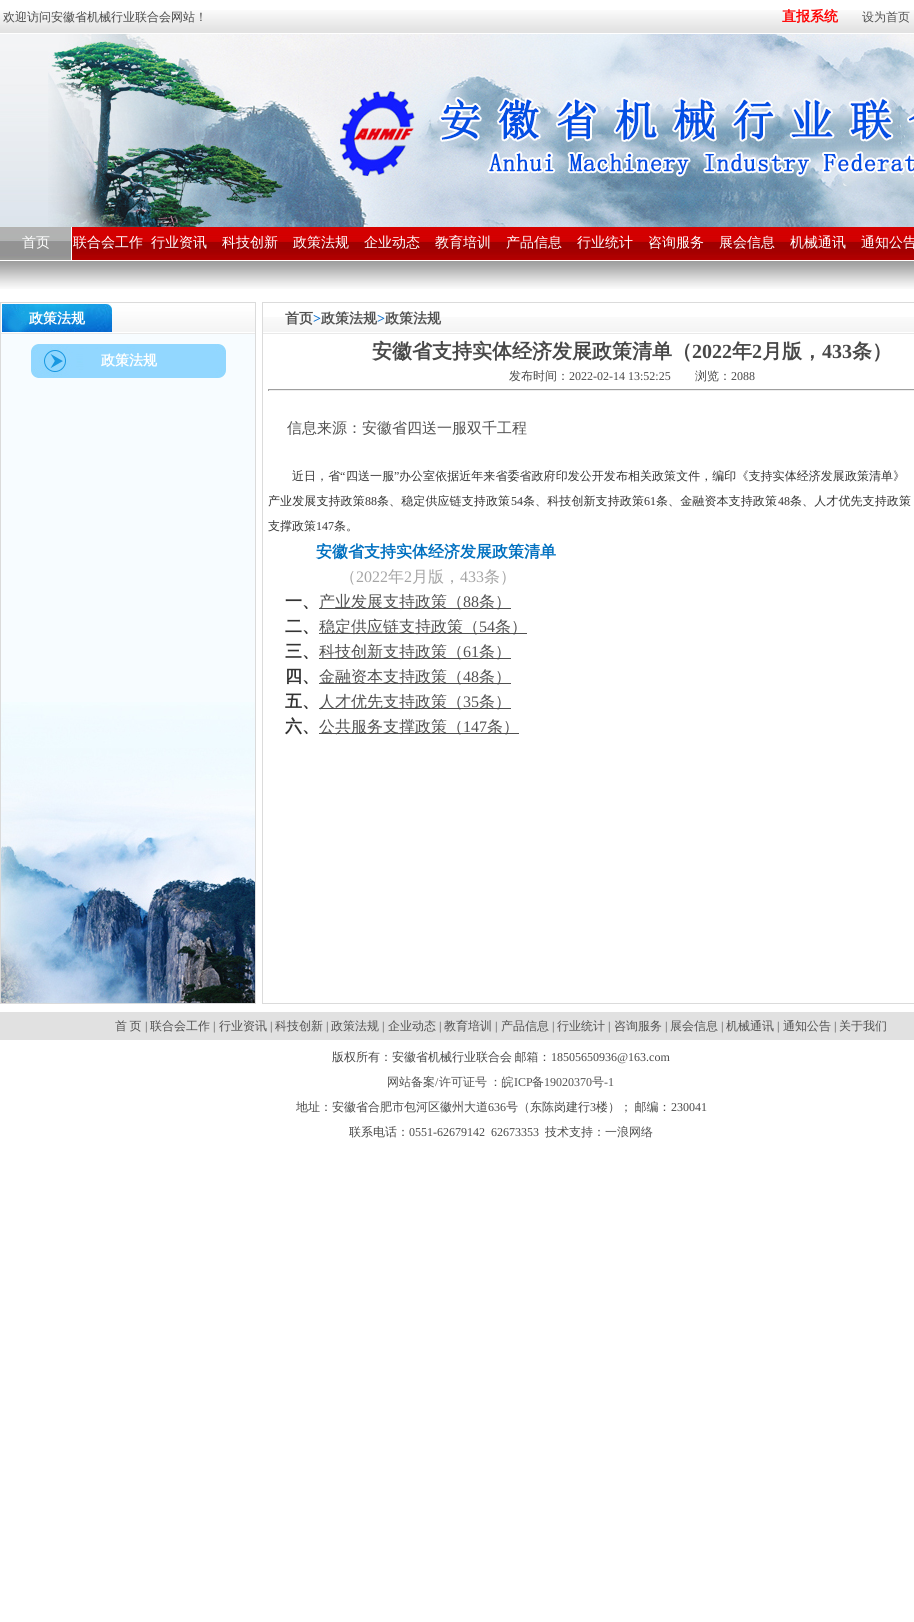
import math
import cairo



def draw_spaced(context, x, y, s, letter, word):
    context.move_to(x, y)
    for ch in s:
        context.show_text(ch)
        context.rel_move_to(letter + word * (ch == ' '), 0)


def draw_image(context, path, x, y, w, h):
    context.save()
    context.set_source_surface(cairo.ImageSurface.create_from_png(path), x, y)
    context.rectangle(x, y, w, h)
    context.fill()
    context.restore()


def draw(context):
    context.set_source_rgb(1, 1, 1)
    context.paint()
    draw_image(context, "images/1.png", 0, 10, 914, 23)
    draw_image(context, "images/2.png", 0, 34, 48, 193)
    draw_image(context, "images/3.png", 48, 34, 866, 193)
    draw_image(context, "images/4.png", 0, 227, 914, 62)
    draw_image(context, "images/5.png", 0, 227, 71, 33)
    context.set_source_rgb(1, 1, 1)
    context.rectangle(71, 227, 1, 34)
    context.fill()
    context.set_source_rgb(247 / 255, 252 / 255, 1)
    context.rectangle(1, 334, 254, 368)
    context.fill()
    draw_image(context, "images/6.png", 1, 702, 254, 301)
    context.rectangle(0.5, 302.5, 255, 701)
    context.set_source_rgb(219 / 255, 219 / 255, 219 / 255)
    context.set_line_width(1)
    context.stroke()
    draw_image(context, "images/7.png", 1, 303, 254, 31)
    draw_image(context, "images/8.png", 1, 304, 111, 28)
    draw_image(context, "images/9.png", 31, 344, 195, 34)
    context.rectangle(262.5, 302.5, 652, 701)
    context.stroke()
    draw_image(context, "images/10.png", 263, 317, 651, 17)
    context.set_source_rgb(159 / 255, 159 / 255, 159 / 255)
    context.rectangle(268, 389, 646, 1)
    context.fill()
    context.set_source_rgb(238 / 255, 238 / 255, 238 / 255)
    context.rectangle(268, 390, 646, 1)
    context.fill()
    context.set_source_rgb(159 / 255, 159 / 255, 159 / 255)
    context.rectangle(268, 389, 1, 2)
    context.fill()
    context.set_source_rgb(81 / 255, 81 / 255, 81 / 255)
    context.rectangle(319, 608, 192, 1)
    context.fill()
    context.rectangle(319, 633, 208, 1)
    context.fill()
    context.rectangle(319, 658, 192, 1)
    context.fill()
    context.rectangle(319, 683, 192, 1)
    context.fill()
    context.rectangle(319, 708, 192, 1)
    context.fill()
    context.rectangle(319, 733, 200, 1)
    context.fill()
    context.set_source_rgb(225 / 255, 225 / 255, 225 / 255)
    context.rectangle(0, 1012, 914, 28)
    context.fill()
    context.select_font_face("WenQuanYi Zen Hei Medium")
    context.set_font_size(12)
    context.set_source_rgb(72 / 255, 72 / 255, 72 / 255)
    context.move_to(3, 21)
    context.show_text("欢迎访问安徽省机械行业联合会网站！")
    context.select_font_face("WenQuanYi Zen Hei", cairo.FontSlant.NORMAL, cairo.FontWeight.BOLD)
    context.set_font_size(14)
    context.set_source_rgb(1, 0, 0)
    context.move_to(782, 21)
    context.show_text("直报系统")
    context.select_font_face("WenQuanYi Zen Hei Medium")
    context.set_font_size(12)
    context.set_source_rgb(81 / 255, 81 / 255, 81 / 255)
    context.move_to(862, 21)
    context.show_text("设为首页")
    context.set_font_size(14)
    context.set_source_rgb(1, 1, 1)
    context.move_to(22, 247)
    context.show_text("首页")
    context.move_to(73, 247)
    context.show_text("联合会工作")
    context.move_to(151, 247)
    context.show_text("行业资讯")
    context.move_to(222, 247)
    context.show_text("科技创新")
    context.move_to(293, 247)
    context.show_text("政策法规")
    context.move_to(364, 247)
    context.show_text("企业动态")
    context.move_to(435, 247)
    context.show_text("教育培训")
    context.move_to(506, 247)
    context.show_text("产品信息")
    context.move_to(577, 247)
    context.show_text("行业统计")
    context.move_to(648, 247)
    context.show_text("咨询服务")
    context.move_to(719, 247)
    context.show_text("展会信息")
    context.move_to(790, 247)
    context.show_text("机械通讯")
    context.move_to(861, 247)
    context.show_text("通知公告")
    context.select_font_face("WenQuanYi Zen Hei", cairo.FontSlant.NORMAL, cairo.FontWeight.BOLD)
    context.move_to(29, 323)
    context.show_text("政策法规")
    context.move_to(101, 365)
    context.show_text("政策法规")
    context.set_source_rgb(81 / 255, 81 / 255, 81 / 255)
    context.move_to(285, 323)
    context.show_text("首页")
    context.select_font_face("Liberation Serif", cairo.FontSlant.NORMAL, cairo.FontWeight.BOLD)
    context.set_source_rgb(5 / 255, 109 / 255, 206 / 255)
    context.move_to(313, 323)
    context.show_text(">")
    context.select_font_face("WenQuanYi Zen Hei", cairo.FontSlant.NORMAL, cairo.FontWeight.BOLD)
    context.set_source_rgb(81 / 255, 81 / 255, 81 / 255)
    context.move_to(321, 323)
    context.show_text("政策法规")
    context.select_font_face("Liberation Serif", cairo.FontSlant.NORMAL, cairo.FontWeight.BOLD)
    context.set_source_rgb(5 / 255, 109 / 255, 206 / 255)
    context.move_to(377, 323)
    context.show_text(">")
    context.select_font_face("WenQuanYi Zen Hei", cairo.FontSlant.NORMAL, cairo.FontWeight.BOLD)
    context.set_source_rgb(81 / 255, 81 / 255, 81 / 255)
    context.move_to(385, 323)
    context.show_text("政策法规")
    context.set_font_size(20)
    context.set_source_rgb(72 / 255, 72 / 255, 72 / 255)
    context.move_to(372, 358)
    context.show_text("安徽省支持实体经济发展政策清单（")
    context.select_font_face("Liberation Serif", cairo.FontSlant.NORMAL, cairo.FontWeight.BOLD)
    context.move_to(692, 358)
    context.show_text("2022")
    context.select_font_face("WenQuanYi Zen Hei", cairo.FontSlant.NORMAL, cairo.FontWeight.BOLD)
    context.move_to(732, 358)
    context.show_text("年")
    context.select_font_face("Liberation Serif", cairo.FontSlant.NORMAL, cairo.FontWeight.BOLD)
    context.move_to(752, 358)
    context.show_text("2")
    context.select_font_face("WenQuanYi Zen Hei", cairo.FontSlant.NORMAL, cairo.FontWeight.BOLD)
    context.move_to(762, 358)
    context.show_text("月版，")
    context.select_font_face("Liberation Serif", cairo.FontSlant.NORMAL, cairo.FontWeight.BOLD)
    context.move_to(822, 358)
    context.show_text("433")
    context.select_font_face("WenQuanYi Zen Hei", cairo.FontSlant.NORMAL, cairo.FontWeight.BOLD)
    context.move_to(852, 358)
    context.show_text("条）")
    context.select_font_face("WenQuanYi Zen Hei Medium")
    context.set_font_size(12)
    context.move_to(509, 380)
    context.show_text("发布时间：")
    context.select_font_face("Liberation Serif")
    context.move_to(569, 380)
    context.show_text("2022-02-14 13:52:25")
    context.select_font_face("WenQuanYi Zen Hei Medium")
    context.move_to(695, 380)
    context.show_text("浏览：")
    context.select_font_face("Liberation Serif")
    context.move_to(731, 380)
    context.show_text("2088")
    context.select_font_face("WenQuanYi Zen Hei Medium")
    context.set_font_size(15)
    context.set_source_rgb(81 / 255, 81 / 255, 81 / 255)
    context.move_to(287, 433)
    context.show_text("信息来源：安徽省四送一服双千工程")
    context.set_font_size(12)
    context.set_source_rgb(51 / 255, 51 / 255, 51 / 255)
    draw_spaced(context, 292, 480, "近日，省", 0.05, 0)
    context.select_font_face("Liberation Serif")
    draw_spaced(context, 340, 480, "“", 0.05, 0)
    context.select_font_face("WenQuanYi Zen Hei Medium")
    draw_spaced(context, 346, 480, "四送一服", 0.05, 0)
    context.select_font_face("Liberation Serif")
    draw_spaced(context, 394, 480, "”", 0.05, 0)
    context.select_font_face("WenQuanYi Zen Hei Medium")
    draw_spaced(context, 399, 480, "办公室依据近年来省委省政府印发公开发布相关政策文件，编印《支持实体经济发展政策清单》", 0.05, 0)
    draw_spaced(context, 268, 505, "产业发展支持政策", 0.1, 0)
    context.select_font_face("Liberation Serif")
    draw_spaced(context, 365, 505, "88", 0.1, 0)
    context.select_font_face("WenQuanYi Zen Hei Medium")
    draw_spaced(context, 377, 505, "条、稳定供应链支持政策", 0.1, 0)
    context.select_font_face("Liberation Serif")
    draw_spaced(context, 511, 505, "54", 0.1, 0)
    context.select_font_face("WenQuanYi Zen Hei Medium")
    draw_spaced(context, 523, 505, "条、科技创新支持政策", 0.1, 0)
    context.select_font_face("Liberation Serif")
    draw_spaced(context, 644, 505, "61", 0.1, 0)
    context.select_font_face("WenQuanYi Zen Hei Medium")
    draw_spaced(context, 656, 505, "条、金融资本支持政策", 0.1, 0)
    context.select_font_face("Liberation Serif")
    draw_spaced(context, 778, 505, "48", 0.1, 0)
    context.select_font_face("WenQuanYi Zen Hei Medium")
    draw_spaced(context, 790, 505, "条、人才优先支持政策", 0.1, 0)
    context.move_to(268, 530)
    context.show_text("支撑政策")
    context.select_font_face("Liberation Serif")
    context.move_to(316, 530)
    context.show_text("147")
    context.select_font_face("WenQuanYi Zen Hei Medium")
    context.move_to(334, 530)
    context.show_text("条。")
    context.select_font_face("WenQuanYi Zen Hei", cairo.FontSlant.NORMAL, cairo.FontWeight.BOLD)
    context.set_font_size(16)
    context.set_source_rgb(0, 112 / 255, 192 / 255)
    context.move_to(316, 557)
    context.show_text("安徽省支持实体经济发展政策清单")
    context.select_font_face("WenQuanYi Zen Hei Medium")
    context.set_source_rgb(165 / 255, 165 / 255, 165 / 255)
    context.move_to(340, 582)
    context.show_text("（")
    context.select_font_face("Liberation Serif")
    context.move_to(356, 582)
    context.show_text("2022")
    context.select_font_face("WenQuanYi Zen Hei Medium")
    context.move_to(388, 582)
    context.show_text("年")
    context.select_font_face("Liberation Serif")
    context.move_to(404, 582)
    context.show_text("2")
    context.select_font_face("WenQuanYi Zen Hei Medium")
    context.move_to(412, 582)
    context.show_text("月版，")
    context.select_font_face("Liberation Serif")
    context.move_to(460, 582)
    context.show_text("433")
    context.select_font_face("WenQuanYi Zen Hei Medium")
    context.move_to(484, 582)
    context.show_text("条）")
    context.select_font_face("WenQuanYi Zen Hei", cairo.FontSlant.NORMAL, cairo.FontWeight.BOLD)
    context.set_font_size(17)
    context.set_source_rgb(51 / 255, 51 / 255, 51 / 255)
    context.move_to(285, 607)
    context.show_text("一、")
    context.select_font_face("WenQuanYi Zen Hei Medium")
    context.set_font_size(16)
    context.set_source_rgb(81 / 255, 81 / 255, 81 / 255)
    context.move_to(319, 607)
    context.show_text("产业发展支持政策（")
    context.select_font_face("Liberation Serif")
    context.move_to(463, 607)
    context.show_text("88")
    context.select_font_face("WenQuanYi Zen Hei Medium")
    context.move_to(479, 607)
    context.show_text("条）")
    context.select_font_face("WenQuanYi Zen Hei", cairo.FontSlant.NORMAL, cairo.FontWeight.BOLD)
    context.set_font_size(17)
    context.set_source_rgb(51 / 255, 51 / 255, 51 / 255)
    context.move_to(285, 632)
    context.show_text("二、")
    context.select_font_face("WenQuanYi Zen Hei Medium")
    context.set_font_size(16)
    context.set_source_rgb(81 / 255, 81 / 255, 81 / 255)
    context.move_to(319, 632)
    context.show_text("稳定供应链支持政策（")
    context.select_font_face("Liberation Serif")
    context.move_to(479, 632)
    context.show_text("54")
    context.select_font_face("WenQuanYi Zen Hei Medium")
    context.move_to(495, 632)
    context.show_text("条）")
    context.select_font_face("WenQuanYi Zen Hei", cairo.FontSlant.NORMAL, cairo.FontWeight.BOLD)
    context.set_font_size(17)
    context.set_source_rgb(51 / 255, 51 / 255, 51 / 255)
    context.move_to(285, 657)
    context.show_text("三、")
    context.select_font_face("WenQuanYi Zen Hei Medium")
    context.set_font_size(16)
    context.set_source_rgb(81 / 255, 81 / 255, 81 / 255)
    context.move_to(319, 657)
    context.show_text("科技创新支持政策（")
    context.select_font_face("Liberation Serif")
    context.move_to(463, 657)
    context.show_text("61")
    context.select_font_face("WenQuanYi Zen Hei Medium")
    context.move_to(479, 657)
    context.show_text("条）")
    context.select_font_face("WenQuanYi Zen Hei", cairo.FontSlant.NORMAL, cairo.FontWeight.BOLD)
    context.set_font_size(17)
    context.set_source_rgb(51 / 255, 51 / 255, 51 / 255)
    context.move_to(285, 682)
    context.show_text("四、")
    context.select_font_face("WenQuanYi Zen Hei Medium")
    context.set_font_size(16)
    context.set_source_rgb(81 / 255, 81 / 255, 81 / 255)
    context.move_to(319, 682)
    context.show_text("金融资本支持政策（")
    context.select_font_face("Liberation Serif")
    context.move_to(463, 682)
    context.show_text("48")
    context.select_font_face("WenQuanYi Zen Hei Medium")
    context.move_to(479, 682)
    context.show_text("条）")
    context.select_font_face("WenQuanYi Zen Hei", cairo.FontSlant.NORMAL, cairo.FontWeight.BOLD)
    context.set_font_size(17)
    context.set_source_rgb(51 / 255, 51 / 255, 51 / 255)
    context.move_to(285, 707)
    context.show_text("五、")
    context.select_font_face("WenQuanYi Zen Hei Medium")
    context.set_font_size(16)
    context.set_source_rgb(81 / 255, 81 / 255, 81 / 255)
    context.move_to(319, 707)
    context.show_text("人才优先支持政策（")
    context.select_font_face("Liberation Serif")
    context.move_to(463, 707)
    context.show_text("35")
    context.select_font_face("WenQuanYi Zen Hei Medium")
    context.move_to(479, 707)
    context.show_text("条）")
    context.select_font_face("WenQuanYi Zen Hei", cairo.FontSlant.NORMAL, cairo.FontWeight.BOLD)
    context.set_font_size(17)
    context.set_source_rgb(51 / 255, 51 / 255, 51 / 255)
    context.move_to(285, 732)
    context.show_text("六、")
    context.select_font_face("WenQuanYi Zen Hei Medium")
    context.set_font_size(16)
    context.set_source_rgb(81 / 255, 81 / 255, 81 / 255)
    context.move_to(319, 732)
    context.show_text("公共服务支撑政策（")
    context.select_font_face("Liberation Serif")
    context.move_to(463, 732)
    context.show_text("147")
    context.select_font_face("WenQuanYi Zen Hei Medium")
    context.move_to(487, 732)
    context.show_text("条）")
    context.set_font_size(12)
    draw_spaced(context, 115, 1030, "首 页", 0, -1)
    context.select_font_face("Liberation Serif")
    context.set_source_rgb(72 / 255, 72 / 255, 72 / 255)
    context.move_to(145, 1030)
    context.show_text("|")
    context.select_font_face("WenQuanYi Zen Hei Medium")
    context.set_source_rgb(81 / 255, 81 / 255, 81 / 255)
    context.move_to(150, 1030)
    context.show_text("联合会工作")
    context.select_font_face("Liberation Serif")
    context.set_source_rgb(72 / 255, 72 / 255, 72 / 255)
    context.move_to(213, 1030)
    context.show_text("|")
    context.select_font_face("WenQuanYi Zen Hei Medium")
    context.set_source_rgb(81 / 255, 81 / 255, 81 / 255)
    context.move_to(219, 1030)
    context.show_text("行业资讯")
    context.select_font_face("Liberation Serif")
    context.set_source_rgb(72 / 255, 72 / 255, 72 / 255)
    context.move_to(270, 1030)
    context.show_text("|")
    context.select_font_face("WenQuanYi Zen Hei Medium")
    context.set_source_rgb(81 / 255, 81 / 255, 81 / 255)
    context.move_to(275, 1030)
    context.show_text("科技创新")
    context.select_font_face("Liberation Serif")
    context.set_source_rgb(72 / 255, 72 / 255, 72 / 255)
    context.move_to(326, 1030)
    context.show_text("|")
    context.select_font_face("WenQuanYi Zen Hei Medium")
    context.set_source_rgb(81 / 255, 81 / 255, 81 / 255)
    context.move_to(331, 1030)
    context.show_text("政策法规")
    context.select_font_face("Liberation Serif")
    context.set_source_rgb(72 / 255, 72 / 255, 72 / 255)
    context.move_to(382, 1030)
    context.show_text("|")
    context.select_font_face("WenQuanYi Zen Hei Medium")
    context.set_source_rgb(81 / 255, 81 / 255, 81 / 255)
    context.move_to(388, 1030)
    context.show_text("企业动态")
    context.select_font_face("Liberation Serif")
    context.set_source_rgb(72 / 255, 72 / 255, 72 / 255)
    context.move_to(439, 1030)
    context.show_text("|")
    context.select_font_face("WenQuanYi Zen Hei Medium")
    context.set_source_rgb(81 / 255, 81 / 255, 81 / 255)
    context.move_to(444, 1030)
    context.show_text("教育培训")
    context.select_font_face("Liberation Serif")
    context.set_source_rgb(72 / 255, 72 / 255, 72 / 255)
    context.move_to(495, 1030)
    context.show_text("|")
    context.select_font_face("WenQuanYi Zen Hei Medium")
    context.set_source_rgb(81 / 255, 81 / 255, 81 / 255)
    context.move_to(501, 1030)
    context.show_text("产品信息")
    context.select_font_face("Liberation Serif")
    context.set_source_rgb(72 / 255, 72 / 255, 72 / 255)
    context.move_to(552, 1030)
    context.show_text("|")
    context.select_font_face("WenQuanYi Zen Hei Medium")
    context.set_source_rgb(81 / 255, 81 / 255, 81 / 255)
    context.move_to(557, 1030)
    context.show_text("行业统计")
    context.select_font_face("Liberation Serif")
    context.set_source_rgb(72 / 255, 72 / 255, 72 / 255)
    context.move_to(608, 1030)
    context.show_text("|")
    context.select_font_face("WenQuanYi Zen Hei Medium")
    context.set_source_rgb(81 / 255, 81 / 255, 81 / 255)
    context.move_to(614, 1030)
    context.show_text("咨询服务")
    context.select_font_face("Liberation Serif")
    context.set_source_rgb(72 / 255, 72 / 255, 72 / 255)
    context.move_to(665, 1030)
    context.show_text("|")
    context.select_font_face("WenQuanYi Zen Hei Medium")
    context.set_source_rgb(81 / 255, 81 / 255, 81 / 255)
    context.move_to(670, 1030)
    context.show_text("展会信息")
    context.select_font_face("Liberation Serif")
    context.set_source_rgb(72 / 255, 72 / 255, 72 / 255)
    context.move_to(721, 1030)
    context.show_text("|")
    context.select_font_face("WenQuanYi Zen Hei Medium")
    context.set_source_rgb(81 / 255, 81 / 255, 81 / 255)
    context.move_to(726, 1030)
    context.show_text("机械通讯")
    context.select_font_face("Liberation Serif")
    context.set_source_rgb(72 / 255, 72 / 255, 72 / 255)
    context.move_to(777, 1030)
    context.show_text("|")
    context.select_font_face("WenQuanYi Zen Hei Medium")
    context.set_source_rgb(81 / 255, 81 / 255, 81 / 255)
    context.move_to(783, 1030)
    context.show_text("通知公告")
    context.select_font_face("Liberation Serif")
    context.set_source_rgb(72 / 255, 72 / 255, 72 / 255)
    context.move_to(834, 1030)
    context.show_text("|")
    context.select_font_face("WenQuanYi Zen Hei Medium")
    context.set_source_rgb(81 / 255, 81 / 255, 81 / 255)
    context.move_to(839, 1030)
    context.show_text("关于我们")
    context.set_source_rgb(72 / 255, 72 / 255, 72 / 255)
    draw_spaced(context, 332, 1061, "版权所有：安徽省机械行业联合会 邮箱：", 0, -1)
    context.select_font_face("Liberation Serif")
    context.move_to(551, 1061)
    context.show_text("18505650936@163.com")
    context.select_font_face("WenQuanYi Zen Hei Medium")
    context.set_source_rgb(81 / 255, 81 / 255, 81 / 255)
    context.move_to(387, 1086)
    context.show_text("网站备案")
    context.select_font_face("Liberation Serif")
    context.move_to(435, 1086)
    context.show_text("/")
    context.select_font_face("WenQuanYi Zen Hei Medium")
    draw_spaced(context, 439, 1086, "许可证号 ：皖", 0, -1)
    context.select_font_face("Liberation Serif")
    context.move_to(514, 1086)
    context.show_text("ICP")
    context.select_font_face("WenQuanYi Zen Hei Medium")
    context.move_to(532, 1086)
    context.show_text("备")
    context.select_font_face("Liberation Serif")
    context.move_to(544, 1086)
    context.show_text("19020370")
    context.select_font_face("WenQuanYi Zen Hei Medium")
    context.move_to(592, 1086)
    context.show_text("号")
    context.select_font_face("Liberation Serif")
    context.move_to(604, 1086)
    context.show_text("-1")
    context.select_font_face("WenQuanYi Zen Hei Medium")
    context.set_source_rgb(72 / 255, 72 / 255, 72 / 255)
    context.move_to(296, 1111)
    context.show_text("地址：安徽省合肥市包河区徽州大道")
    context.select_font_face("Liberation Serif")
    context.move_to(488, 1111)
    context.show_text("636")
    context.select_font_face("WenQuanYi Zen Hei Medium")
    context.move_to(506, 1111)
    context.show_text("号（东陈岗建行")
    context.select_font_face("Liberation Serif")
    context.move_to(590, 1111)
    context.show_text("3")
    context.select_font_face("WenQuanYi Zen Hei Medium")
    context.move_to(596, 1111)
    context.show_text("楼")
    draw_spaced(context, 608, 1111, "）； 邮编：", 0, -1)
    context.select_font_face("Liberation Serif")
    context.move_to(671, 1111)
    context.show_text("230041")
    context.select_font_face("WenQuanYi Zen Hei Medium")
    context.move_to(349, 1136)
    context.show_text("联系电话：")
    context.select_font_face("Liberation Serif")
    context.move_to(409, 1136)
    context.show_text("0551-62679142  62673353")
    context.select_font_face("WenQuanYi Zen Hei Medium")
    context.move_to(545, 1136)
    context.show_text("技术支持：")
    context.set_source_rgb(81 / 255, 81 / 255, 81 / 255)
    context.move_to(605, 1136)
    context.show_text("一浪网络")


surface = cairo.ImageSurface(cairo.Format.RGB24, 914, 1622)
context = cairo.Context(surface)
options = cairo.FontOptions()
options.set_hint_metrics(cairo.HintMetrics.OFF)
options.set_hint_style(cairo.HintStyle.NONE)
context.set_font_options(options)
context.set_miter_limit(4)
draw(context)
surface.write_to_png("out.png")
